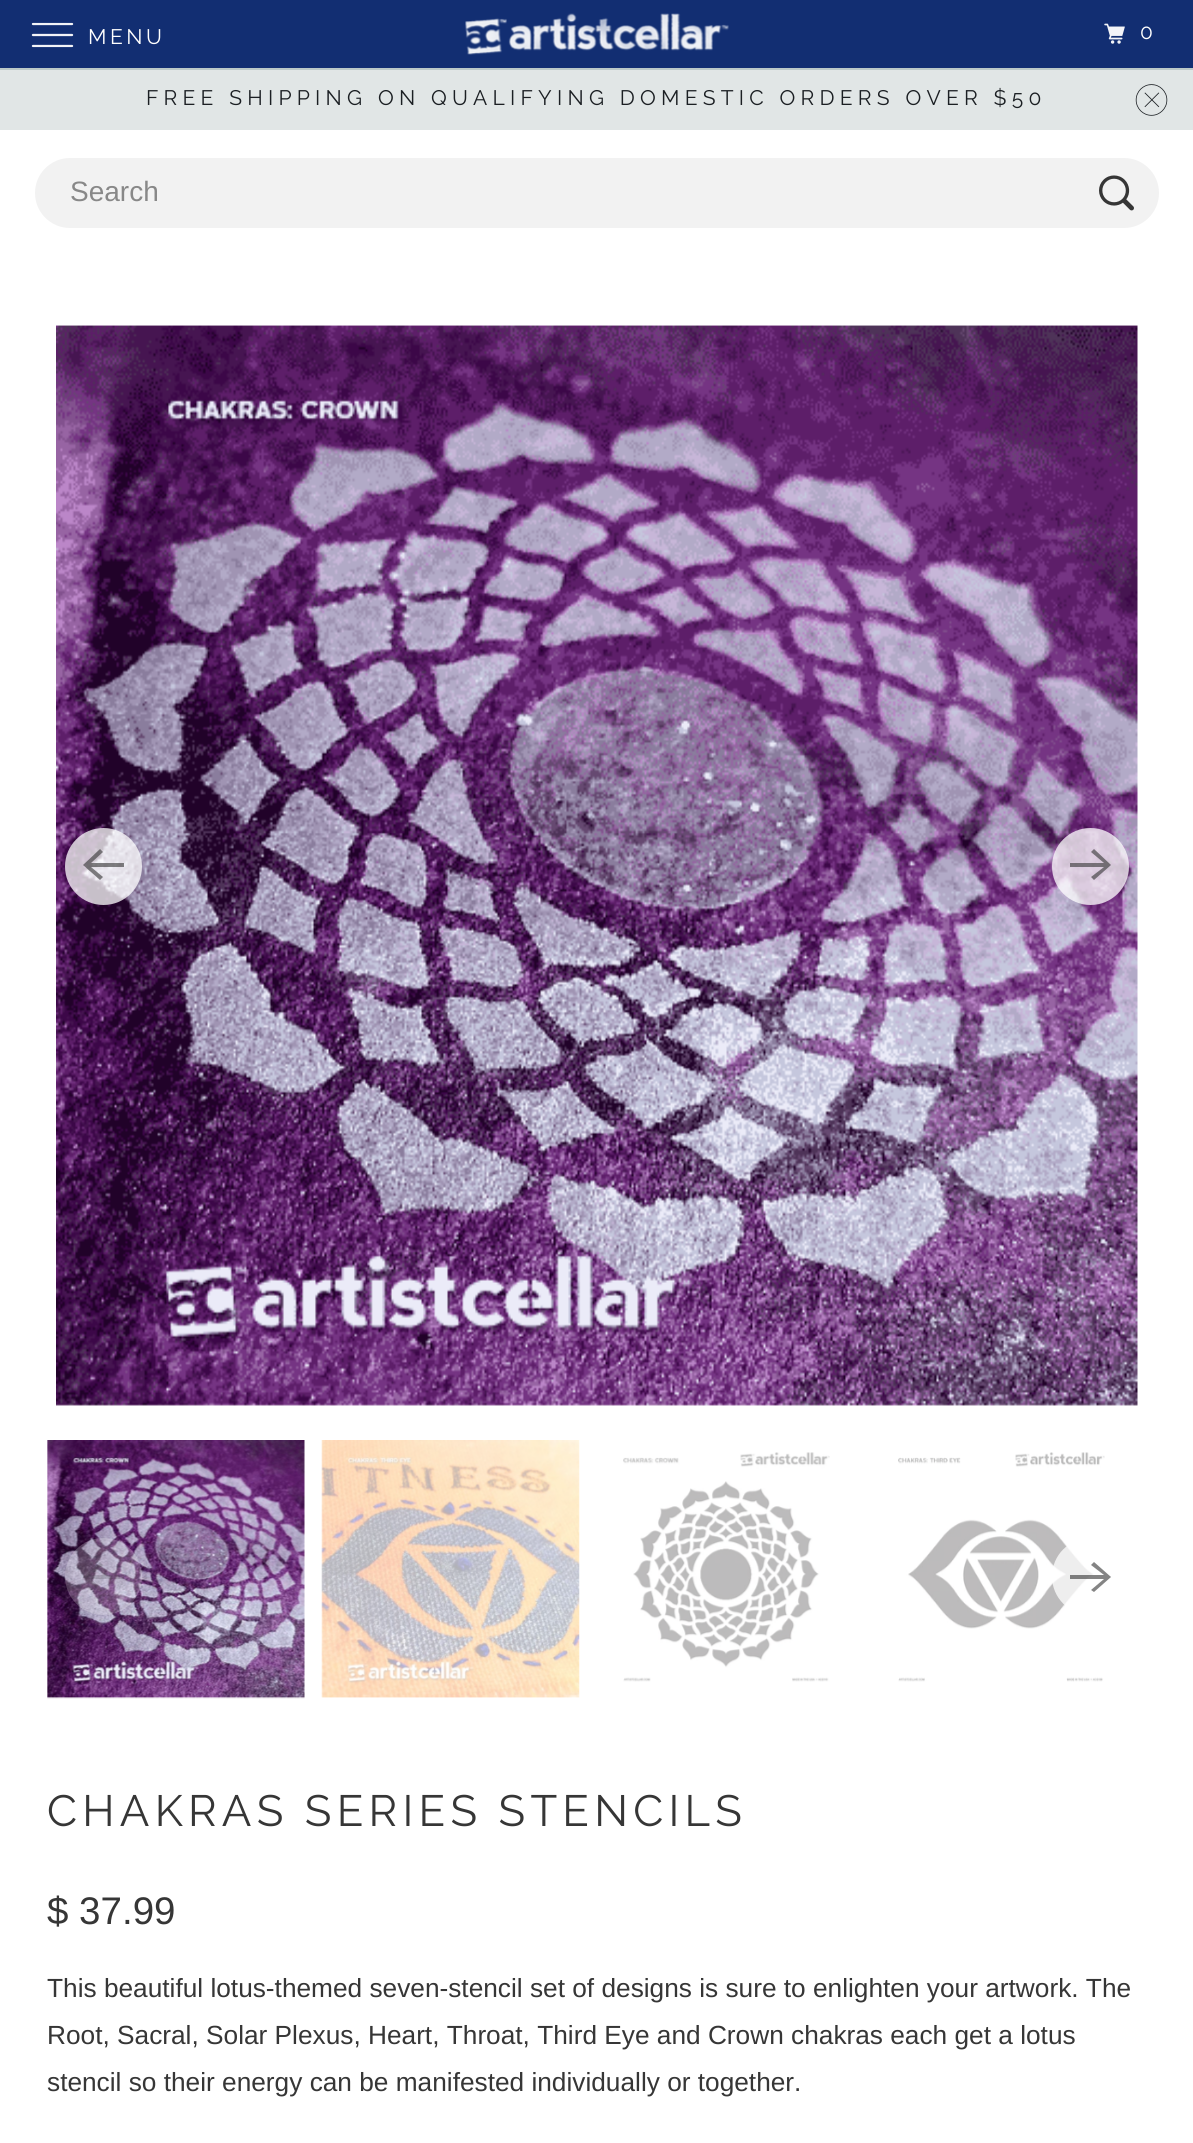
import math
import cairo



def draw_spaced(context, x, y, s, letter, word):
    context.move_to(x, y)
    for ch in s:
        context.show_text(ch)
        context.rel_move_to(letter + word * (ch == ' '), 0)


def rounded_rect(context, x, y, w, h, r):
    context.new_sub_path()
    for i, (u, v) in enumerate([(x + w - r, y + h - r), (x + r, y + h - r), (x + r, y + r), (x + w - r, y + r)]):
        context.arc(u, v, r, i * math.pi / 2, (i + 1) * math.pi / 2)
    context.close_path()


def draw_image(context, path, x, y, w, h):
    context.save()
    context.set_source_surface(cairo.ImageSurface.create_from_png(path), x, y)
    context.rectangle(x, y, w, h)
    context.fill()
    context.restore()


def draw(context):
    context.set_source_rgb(1, 1, 1)
    context.paint()
    context.set_source_rgb(18 / 255, 46 / 255, 114 / 255)
    context.rectangle(0, 0, 1193, 68)
    context.fill()
    context.set_source_rgb(188 / 255, 201 / 255, 201 / 255)
    context.rectangle(0, 68, 1193, 2)
    context.fill()
    draw_image(context, "images/1.png", 31, 22, 43, 26)
    draw_image(context, "images/2.png", 465, 13, 264, 42)
    draw_image(context, "images/3.png", 1104, 23, 21, 21)
    context.set_source_rgb(225 / 255, 230 / 255, 230 / 255)
    context.rectangle(0, 70, 1193, 60)
    context.fill()
    draw_image(context, "images/4.png", 1135, 84, 33, 32)
    context.set_source_rgb(242 / 255, 242 / 255, 242 / 255)
    rounded_rect(context, 35, 158, 1124, 70, 35)
    context.fill()
    draw_image(context, "images/5.png", 1099, 175, 35, 36)
    draw_image(context, "images/6.png", 56, 325, 1082, 1081)
    context.set_source_rgba(1, 1, 1, 0.75)
    context.arc(103.5, 866.5, 38.5, 0, 2 * math.pi)
    context.fill()
    context.set_source_rgba(51 / 255, 51 / 255, 51 / 255, 0.6)
    context.new_path()
    context.move_to(124, 863)
    context.line_to(91, 863)
    context.line_to(103, 852)
    context.line_to(100, 849)
    context.line_to(83, 865)
    context.line_to(100, 880)
    context.line_to(103, 877)
    context.line_to(91, 867)
    context.line_to(124, 867)
    context.close_path()
    context.fill()
    context.set_source_rgba(1, 1, 1, 0.75)
    context.arc(1090.5, 866.5, 38.5, 0, 2 * math.pi)
    context.fill()
    context.set_source_rgba(51 / 255, 51 / 255, 51 / 255, 0.6)
    context.new_path()
    context.move_to(1070, 867)
    context.line_to(1104, 867)
    context.line_to(1091, 877)
    context.line_to(1094, 880)
    context.line_to(1111, 865)
    context.line_to(1094, 849)
    context.line_to(1091, 852)
    context.line_to(1104, 863)
    context.line_to(1070, 863)
    context.close_path()
    context.fill()
    draw_image(context, "images/7.png", 47, 1440, 258, 259)
    draw_image(context, "images/8.png", 321, 1440, 259, 258)
    draw_image(context, "images/9.png", 623, 1452, 207, 230)
    draw_image(context, "images/10.png", 898, 1452, 207, 230)
    context.set_source_rgba(1, 1, 1, 0.22)
    context.arc(103.5, 1576.5, 38.5, 0, 2 * math.pi)
    context.fill()
    context.set_source_rgba(51 / 255, 51 / 255, 51 / 255, 0.18)
    context.new_path()
    context.move_to(124, 1575)
    context.line_to(91, 1575)
    context.line_to(103, 1565)
    context.line_to(100, 1562)
    context.line_to(83, 1577)
    context.line_to(100, 1592)
    context.line_to(103, 1590)
    context.line_to(91, 1579)
    context.line_to(124, 1579)
    context.close_path()
    context.fill()
    context.set_source_rgba(1, 1, 1, 0.75)
    context.arc(1090.5, 1576.5, 38.5, 0, 2 * math.pi)
    context.fill()
    context.set_source_rgba(51 / 255, 51 / 255, 51 / 255, 0.6)
    context.new_path()
    context.move_to(1070, 1579)
    context.line_to(1104, 1579)
    context.line_to(1091, 1590)
    context.line_to(1094, 1592)
    context.line_to(1111, 1577)
    context.line_to(1094, 1562)
    context.line_to(1091, 1565)
    context.line_to(1104, 1575)
    context.line_to(1070, 1575)
    context.close_path()
    context.fill()
    context.select_font_face("Raleway")
    context.set_font_size(21)
    context.set_source_rgb(1, 1, 1)
    draw_spaced(context, 88, 44, "MENU", 3.5, 0)
    draw_spaced(context, 1140, 39, "0", 3.5, 0)
    context.set_source_rgb(27 / 255, 31 / 255, 35 / 255)
    draw_spaced(context, 146, 105, "FREE SHIPPING ON QUALIFYING DOMESTIC ORDERS OVER $50", 5.25, 0)
    context.select_font_face("Liberation Sans")
    context.set_font_size(28)
    context.set_source_rgb(136 / 255, 136 / 255, 136 / 255)
    context.move_to(70, 201)
    context.show_text("Search")
    context.select_font_face("Raleway")
    context.set_font_size(43.75)
    context.set_source_rgb(54 / 255, 54 / 255, 54 / 255)
    draw_spaced(context, 47, 1826, "CHAKRAS SERIES STENCILS", 5.25, 0)
    context.select_font_face("Liberation Sans")
    context.set_font_size(38.5)
    context.move_to(47, 1924)
    context.show_text("$ 37.99")
    context.set_font_size(26.25)
    context.move_to(47, 1997)
    context.show_text("This beautiful lotus-themed seven-stencil set of designs is sure to enlighten your artwork. The")
    context.move_to(47, 2044)
    context.show_text("Root, Sacral, Solar Plexus, Heart, Throat, Third Eye and Crown chakras each get a lotus")
    context.move_to(47, 2091)
    context.show_text("stencil so their energy can be manifested individually or together.")


surface = cairo.ImageSurface(cairo.Format.RGB24, 1193, 2143)
context = cairo.Context(surface)
options = cairo.FontOptions()
options.set_hint_metrics(cairo.HintMetrics.OFF)
options.set_hint_style(cairo.HintStyle.NONE)
context.set_font_options(options)
context.set_miter_limit(4)
draw(context)
surface.write_to_png("out.png")
